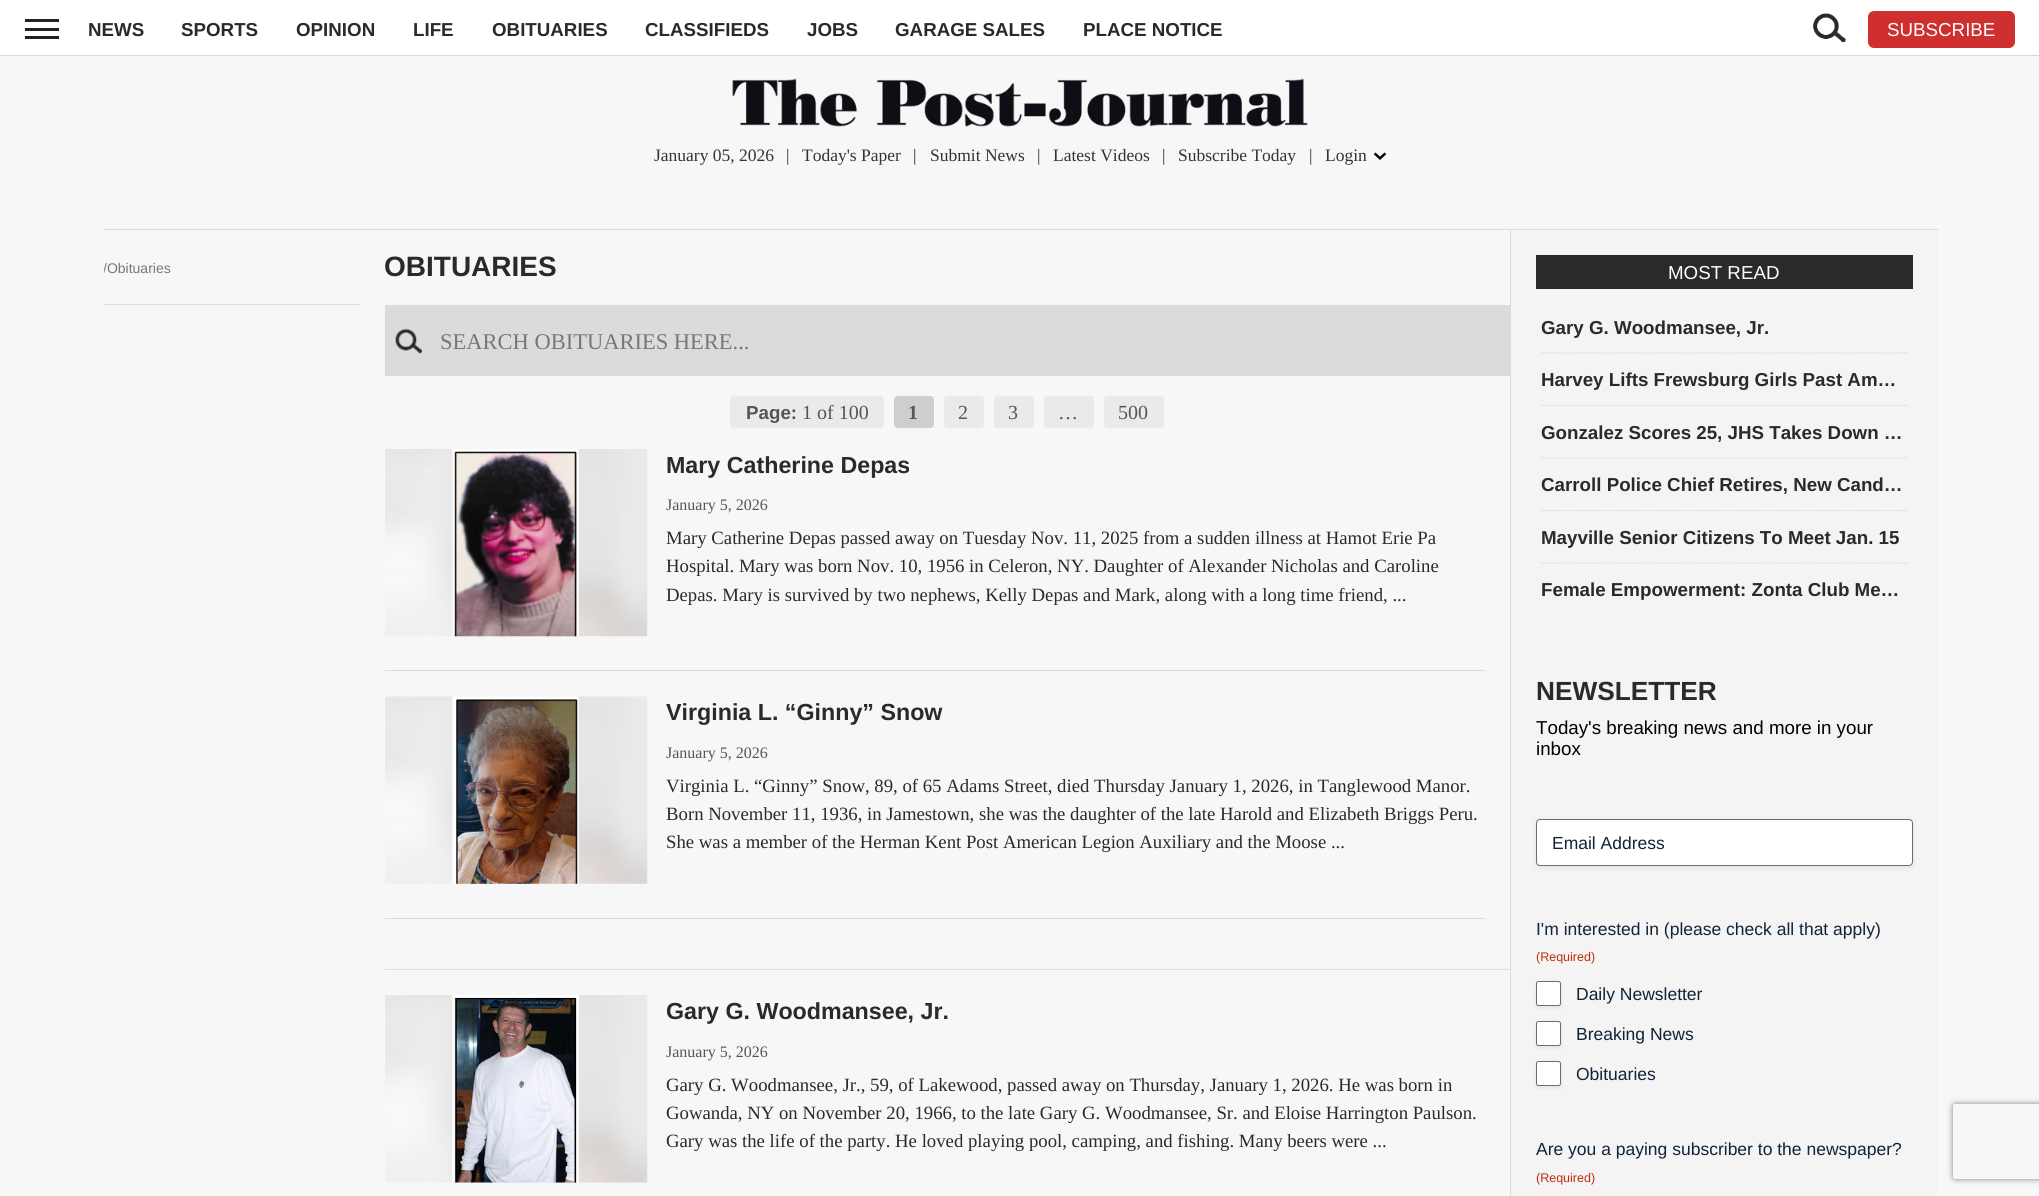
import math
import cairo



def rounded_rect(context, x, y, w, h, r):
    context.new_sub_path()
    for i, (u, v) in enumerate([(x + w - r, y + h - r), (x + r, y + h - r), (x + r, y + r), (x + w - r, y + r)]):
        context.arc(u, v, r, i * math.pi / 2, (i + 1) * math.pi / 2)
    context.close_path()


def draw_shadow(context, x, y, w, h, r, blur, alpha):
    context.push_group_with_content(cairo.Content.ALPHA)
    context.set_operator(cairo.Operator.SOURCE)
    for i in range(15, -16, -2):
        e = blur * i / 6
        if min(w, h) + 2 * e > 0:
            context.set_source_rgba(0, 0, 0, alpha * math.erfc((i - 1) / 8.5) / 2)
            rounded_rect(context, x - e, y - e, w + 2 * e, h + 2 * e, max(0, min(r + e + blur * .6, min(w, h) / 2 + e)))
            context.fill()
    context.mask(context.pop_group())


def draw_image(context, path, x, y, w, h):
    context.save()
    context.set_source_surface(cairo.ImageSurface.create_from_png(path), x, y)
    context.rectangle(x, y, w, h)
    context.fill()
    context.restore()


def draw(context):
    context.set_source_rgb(247 / 255, 247 / 255, 247 / 255)
    context.paint()
    context.set_source_rgb(1, 1, 1)
    context.rectangle(0, 0, 2039, 55)
    context.fill()
    context.set_source_rgb(217 / 255, 217 / 255, 217 / 255)
    context.rectangle(0, 55, 2039, 1)
    context.fill()
    context.set_source_rgb(34 / 255, 34 / 255, 34 / 255)
    context.rectangle(25, 19, 34, 3)
    context.fill()
    context.rectangle(25, 28, 34, 3)
    context.fill()
    context.rectangle(25, 36, 34, 3)
    context.fill()
    draw_image(context, "images/1.png", 1813, 13, 33, 30)
    context.set_source_rgb(207 / 255, 47 / 255, 47 / 255)
    rounded_rect(context, 1868, 11, 147, 37, 6)
    context.fill()
    draw_image(context, "images/2.png", 732, 78, 576, 49)
    draw_image(context, "images/3.png", 1373, 152, 13, 8)
    context.set_source_rgb(244 / 255, 244 / 255, 244 / 255)
    context.rectangle(1511, 230, 427, 966)
    context.fill()
    context.set_source_rgb(219 / 255, 219 / 255, 219 / 255)
    context.rectangle(104, 229, 1834, 1)
    context.fill()
    context.rectangle(1510, 230, 1, 966)
    context.fill()
    context.rectangle(104, 304, 256, 1)
    context.fill()
    context.rectangle(385, 305, 1125, 71)
    context.fill()
    draw_image(context, "images/4.png", 395, 328, 27, 26)
    context.set_source_rgb(234 / 255, 234 / 255, 234 / 255)
    context.new_path()
    context.move_to(734, 396)
    context.line_to(796, 396)
    context.line_to(796, 428)
    context.line_to(734, 428)
    context.curve_to(732, 428, 730, 426, 730, 424)
    context.line_to(730, 400)
    context.curve_to(730, 398, 732, 396, 734, 396)
    context.close_path()
    context.fill()
    context.new_path()
    context.move_to(796, 396)
    context.line_to(880, 396)
    context.curve_to(882, 396, 884, 398, 884, 400)
    context.line_to(884, 424)
    context.curve_to(884, 426, 882, 428, 880, 428)
    context.line_to(796, 428)
    context.close_path()
    context.fill()
    context.set_source_rgb(206 / 255, 206 / 255, 206 / 255)
    rounded_rect(context, 894, 396, 40, 32, 4)
    context.fill()
    context.set_source_rgb(234 / 255, 234 / 255, 234 / 255)
    rounded_rect(context, 944, 396, 40, 32, 4)
    context.fill()
    rounded_rect(context, 994, 396, 40, 32, 4)
    context.fill()
    rounded_rect(context, 1044, 396, 50, 32, 4)
    context.fill()
    rounded_rect(context, 1104, 396, 60, 32, 4)
    context.fill()
    context.set_source_rgb(219 / 255, 219 / 255, 219 / 255)
    context.rectangle(385, 670, 1100, 1)
    context.fill()
    draw_image(context, "images/5.png", 385, 449, 263, 188)
    draw_image(context, "images/6.png", 452, 449, 127, 188)
    context.rectangle(385, 918, 1100, 1)
    context.fill()
    draw_image(context, "images/7.png", 385, 696, 263, 188)
    draw_image(context, "images/8.png", 452, 696, 127, 188)
    context.set_source_rgb(221 / 255, 221 / 255, 221 / 255)
    context.rectangle(385, 969, 1125, 1)
    context.fill()
    draw_image(context, "images/9.png", 385, 995, 263, 188)
    draw_image(context, "images/10.png", 452, 995, 127, 188)
    context.set_source_rgb(42 / 255, 42 / 255, 42 / 255)
    context.rectangle(1536, 255, 377, 34)
    context.fill()
    context.new_path()
    context.move_to(1541, 353)
    context.line_to(1907.5, 353)
    context.set_source_rgb(216 / 255, 216 / 255, 216 / 255)
    context.set_line_width(1.2)
    context.set_dash([1.25, 1.25])
    context.stroke()
    context.new_path()
    context.move_to(1541, 405.5)
    context.line_to(1907.5, 405.5)
    context.stroke()
    context.new_path()
    context.move_to(1541, 458)
    context.line_to(1907.5, 458)
    context.stroke()
    context.new_path()
    context.move_to(1541, 510.5)
    context.line_to(1907.5, 510.5)
    context.stroke()
    context.new_path()
    context.move_to(1541, 563)
    context.line_to(1907.5, 563)
    context.stroke()
    context.set_source_rgb(18 / 255, 25 / 255, 97 / 255)
    draw_shadow(context, 1536, 820, 377, 48, 4, 2.5, 0.08)
    context.set_source_rgb(1, 1, 1)
    rounded_rect(context, 1536.5, 819.5, 376, 46, 3.5)
    context.fill_preserve()
    context.set_source_rgb(104 / 255, 110 / 255, 119 / 255)
    context.set_line_width(1)
    context.set_dash([])
    context.stroke()
    context.set_source_rgb(18 / 255, 25 / 255, 97 / 255)
    draw_shadow(context, 1536, 983, 25, 25, 2.5, 2.5, 0.08)
    context.set_source_rgb(1, 1, 1)
    rounded_rect(context, 1536.5, 981.5, 24, 24, 2)
    context.fill_preserve()
    context.set_source_rgb(104 / 255, 110 / 255, 119 / 255)
    context.stroke()
    context.set_source_rgb(18 / 255, 25 / 255, 97 / 255)
    draw_shadow(context, 1536, 1023, 25, 25, 2.5, 2.5, 0.08)
    context.set_source_rgb(1, 1, 1)
    rounded_rect(context, 1536.5, 1021.5, 24, 24, 2)
    context.fill_preserve()
    context.set_source_rgb(104 / 255, 110 / 255, 119 / 255)
    context.stroke()
    context.set_source_rgb(18 / 255, 25 / 255, 97 / 255)
    draw_shadow(context, 1536, 1063, 25, 25, 2.5, 2.5, 0.08)
    context.set_source_rgb(1, 1, 1)
    rounded_rect(context, 1536.5, 1061.5, 24, 24, 2)
    context.fill_preserve()
    context.set_source_rgb(104 / 255, 110 / 255, 119 / 255)
    context.stroke()
    context.save()
    context.set_fill_rule(cairo.FillRule.EVEN_ODD)
    context.new_path()
    context.move_to(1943, 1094)
    context.line_to(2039, 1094)
    context.line_to(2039, 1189)
    context.line_to(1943, 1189)
    context.close_path()
    context.move_to(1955.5, 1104)
    context.line_to(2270.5, 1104)
    context.curve_to(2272, 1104, 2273, 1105, 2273, 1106.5)
    context.line_to(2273, 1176.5)
    context.curve_to(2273, 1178, 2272, 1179, 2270.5, 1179)
    context.line_to(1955.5, 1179)
    context.curve_to(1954, 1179, 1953, 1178, 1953, 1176.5)
    context.line_to(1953, 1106.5)
    context.curve_to(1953, 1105, 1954, 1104, 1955.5, 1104)
    context.close_path()
    context.clip()
    context.set_source_rgb(128 / 255, 128 / 255, 128 / 255)
    draw_shadow(context, 1953, 1104, 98, 75, 2.5, 3, 1)
    context.restore()
    context.select_font_face("Liberation Sans", cairo.FontSlant.NORMAL, cairo.FontWeight.BOLD)
    context.set_font_size(18.75)
    context.set_source_rgb(42 / 255, 42 / 255, 42 / 255)
    context.move_to(88, 36)
    context.show_text("NEWS")
    context.move_to(181, 36)
    context.show_text("SPORTS")
    context.move_to(296, 36)
    context.show_text("OPINION")
    context.move_to(413, 36)
    context.show_text("LIFE")
    context.move_to(492, 36)
    context.show_text("OBITUARIES")
    context.move_to(645, 36)
    context.show_text("CLASSIFIEDS")
    context.move_to(807, 36)
    context.show_text("JOBS")
    context.move_to(895, 36)
    context.show_text("GARAGE SALES")
    context.move_to(1083, 36)
    context.show_text("PLACE NOTICE")
    context.select_font_face("Liberation Sans")
    context.set_source_rgb(1, 1, 1)
    context.move_to(1887, 36)
    context.show_text("SUBSCRIBE")
    context.select_font_face("Liberation Serif")
    context.set_font_size(17.5)
    context.set_source_rgb(51 / 255, 51 / 255, 51 / 255)
    context.move_to(654, 161)
    context.show_text("January 05, 2026")
    context.move_to(786, 161)
    context.show_text("|")
    context.move_to(802, 161)
    context.show_text("Today's Paper")
    context.move_to(913, 161)
    context.show_text("|")
    context.move_to(930, 161)
    context.show_text("Submit News")
    context.move_to(1037, 161)
    context.show_text("|")
    context.move_to(1053, 161)
    context.show_text("Latest Videos")
    context.move_to(1162, 161)
    context.show_text("|")
    context.move_to(1178, 161)
    context.show_text("Subscribe Today")
    context.move_to(1309, 161)
    context.show_text("|")
    context.move_to(1325, 161)
    context.show_text("Login")
    context.save()
    context.rectangle(104, 230, 1406, 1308)
    context.clip()
    context.select_font_face("Liberation Sans")
    context.set_font_size(14)
    context.set_source_rgb(119 / 255, 119 / 255, 119 / 255)
    context.move_to(103, 273)
    context.show_text("/Obituaries")
    context.restore()
    context.select_font_face("Liberation Sans", cairo.FontSlant.NORMAL, cairo.FontWeight.BOLD)
    context.set_font_size(28)
    context.set_source_rgb(42 / 255, 42 / 255, 42 / 255)
    context.move_to(384, 276)
    context.show_text("OBITUARIES")
    context.select_font_face("Liberation Serif")
    context.set_font_size(22.5)
    context.set_source_rgb(119 / 255, 119 / 255, 119 / 255)
    context.move_to(440, 349)
    context.show_text("SEARCH OBITUARIES HERE...")
    context.select_font_face("Liberation Sans", cairo.FontSlant.NORMAL, cairo.FontWeight.BOLD)
    context.set_font_size(18.75)
    context.set_source_rgb(85 / 255, 85 / 255, 85 / 255)
    context.move_to(746, 419)
    context.show_text("Page:")
    context.select_font_face("Liberation Serif")
    context.set_font_size(20)
    context.move_to(802, 419)
    context.show_text("1 of 100")
    context.select_font_face("Liberation Serif", cairo.FontSlant.NORMAL, cairo.FontWeight.BOLD)
    context.move_to(908, 419)
    context.show_text("1")
    context.select_font_face("Liberation Serif")
    context.move_to(958, 419)
    context.show_text("2")
    context.move_to(1008, 419)
    context.show_text("3")
    context.move_to(1058, 419)
    context.show_text("…")
    context.move_to(1118, 419)
    context.show_text("500")
    context.select_font_face("Liberation Sans", cairo.FontSlant.NORMAL, cairo.FontWeight.BOLD)
    context.set_font_size(23.25)
    context.set_source_rgb(42 / 255, 42 / 255, 42 / 255)
    context.move_to(666, 473)
    context.show_text("Mary Catherine Depas")
    context.select_font_face("Liberation Serif")
    context.set_font_size(16)
    context.set_source_rgb(85 / 255, 85 / 255, 85 / 255)
    context.move_to(666, 510)
    context.show_text("January 5, 2026")
    context.set_font_size(18.75)
    context.set_source_rgb(42 / 255, 42 / 255, 42 / 255)
    context.move_to(666, 544)
    context.show_text("Mary Catherine Depas passed away on Tuesday Nov. 11, 2025 from a sudden illness at Hamot Erie Pa")
    context.move_to(666, 572)
    context.show_text("Hospital. Mary was born Nov. 10, 1956 in Celeron, NY. Daughter of Alexander Nicholas and Caroline")
    context.move_to(666, 601)
    context.show_text("Depas. Mary is survived by two nephews, Kelly Depas and Mark, along with a long time friend, ...")
    context.select_font_face("Liberation Sans", cairo.FontSlant.NORMAL, cairo.FontWeight.BOLD)
    context.set_font_size(23.25)
    context.move_to(666, 720)
    context.show_text("Virginia L. “Ginny” Snow")
    context.select_font_face("Liberation Serif")
    context.set_font_size(16)
    context.set_source_rgb(85 / 255, 85 / 255, 85 / 255)
    context.move_to(666, 758)
    context.show_text("January 5, 2026")
    context.set_font_size(18.75)
    context.set_source_rgb(42 / 255, 42 / 255, 42 / 255)
    context.move_to(666, 792)
    context.show_text("Virginia L. “Ginny” Snow, 89, of 65 Adams Street, died Thursday January 1, 2026, in Tanglewood Manor.")
    context.move_to(666, 820)
    context.show_text("Born November 11, 1936, in Jamestown, she was the daughter of the late Harold and Elizabeth Briggs Peru.")
    context.move_to(666, 848)
    context.show_text("She was a member of the Herman Kent Post American Legion Auxiliary and the Moose ...")
    context.select_font_face("Liberation Sans", cairo.FontSlant.NORMAL, cairo.FontWeight.BOLD)
    context.set_font_size(23.25)
    context.move_to(666, 1019)
    context.show_text("Gary G. Woodmansee, Jr.")
    context.select_font_face("Liberation Serif")
    context.set_font_size(16)
    context.set_source_rgb(85 / 255, 85 / 255, 85 / 255)
    context.move_to(666, 1057)
    context.show_text("January 5, 2026")
    context.set_font_size(18.75)
    context.set_source_rgb(42 / 255, 42 / 255, 42 / 255)
    context.move_to(666, 1091)
    context.show_text("Gary G. Woodmansee, Jr., 59, of Lakewood, passed away on Thursday, January 1, 2026. He was born in")
    context.move_to(666, 1119)
    context.show_text("Gowanda, NY on November 20, 1966, to the late Gary G. Woodmansee, Sr. and Eloise Harrington Paulson.")
    context.move_to(666, 1147)
    context.show_text("Gary was the life of the party. He loved playing pool, camping, and fishing. Many beers were ...")
    context.select_font_face("Liberation Sans")
    context.set_source_rgb(1, 1, 1)
    context.move_to(1668, 279)
    context.show_text("MOST READ")
    context.select_font_face("Liberation Sans", cairo.FontSlant.NORMAL, cairo.FontWeight.BOLD)
    context.set_source_rgb(42 / 255, 42 / 255, 42 / 255)
    context.move_to(1541, 334)
    context.show_text("Gary G. Woodmansee, Jr.")
    context.move_to(1541, 386)
    context.show_text("Harvey Lifts Frewsburg Girls Past Am…")
    context.move_to(1541, 439)
    context.show_text("Gonzalez Scores 25, JHS Takes Down …")
    context.move_to(1541, 491)
    context.show_text("Carroll Police Chief Retires, New Cand…")
    context.move_to(1541, 544)
    context.show_text("Mayville Senior Citizens To Meet Jan. 15")
    context.move_to(1541, 596)
    context.show_text("Female Empowerment: Zonta Club Me…")
    context.set_font_size(26.25)
    context.move_to(1536, 700)
    context.show_text("NEWSLETTER")
    context.select_font_face("Liberation Sans")
    context.set_font_size(18.75)
    context.set_source_rgb(0, 0, 0)
    context.move_to(1536, 734)
    context.show_text("Today's breaking news and more in your")
    context.move_to(1536, 755)
    context.show_text("inbox")
    context.set_font_size(17.5)
    context.set_source_rgb(17 / 255, 35 / 255, 55 / 255)
    context.move_to(1552, 849)
    context.show_text("Email Address")
    context.move_to(1536, 935)
    context.show_text("I'm interested in (please check all that apply)")
    context.set_font_size(12.5)
    context.set_source_rgb(192 / 255, 43 / 255, 10 / 255)
    context.move_to(1536, 961)
    context.show_text("(Required)")
    context.set_font_size(17.5)
    context.set_source_rgb(17 / 255, 35 / 255, 55 / 255)
    context.move_to(1576, 1000)
    context.show_text("Daily Newsletter")
    context.move_to(1576, 1040)
    context.show_text("Breaking News")
    context.move_to(1576, 1080)
    context.show_text("Obituaries")
    context.move_to(1536, 1155)
    context.show_text("Are you a paying subscriber to the newspaper?")
    context.set_font_size(12.5)
    context.set_source_rgb(192 / 255, 43 / 255, 10 / 255)
    context.move_to(1536, 1182)
    context.show_text("(Required)")


surface = cairo.ImageSurface(cairo.Format.RGB24, 2039, 1196)
context = cairo.Context(surface)
options = cairo.FontOptions()
options.set_hint_metrics(cairo.HintMetrics.OFF)
options.set_hint_style(cairo.HintStyle.NONE)
context.set_font_options(options)
context.set_miter_limit(4)
draw(context)
surface.write_to_png("out.png")
